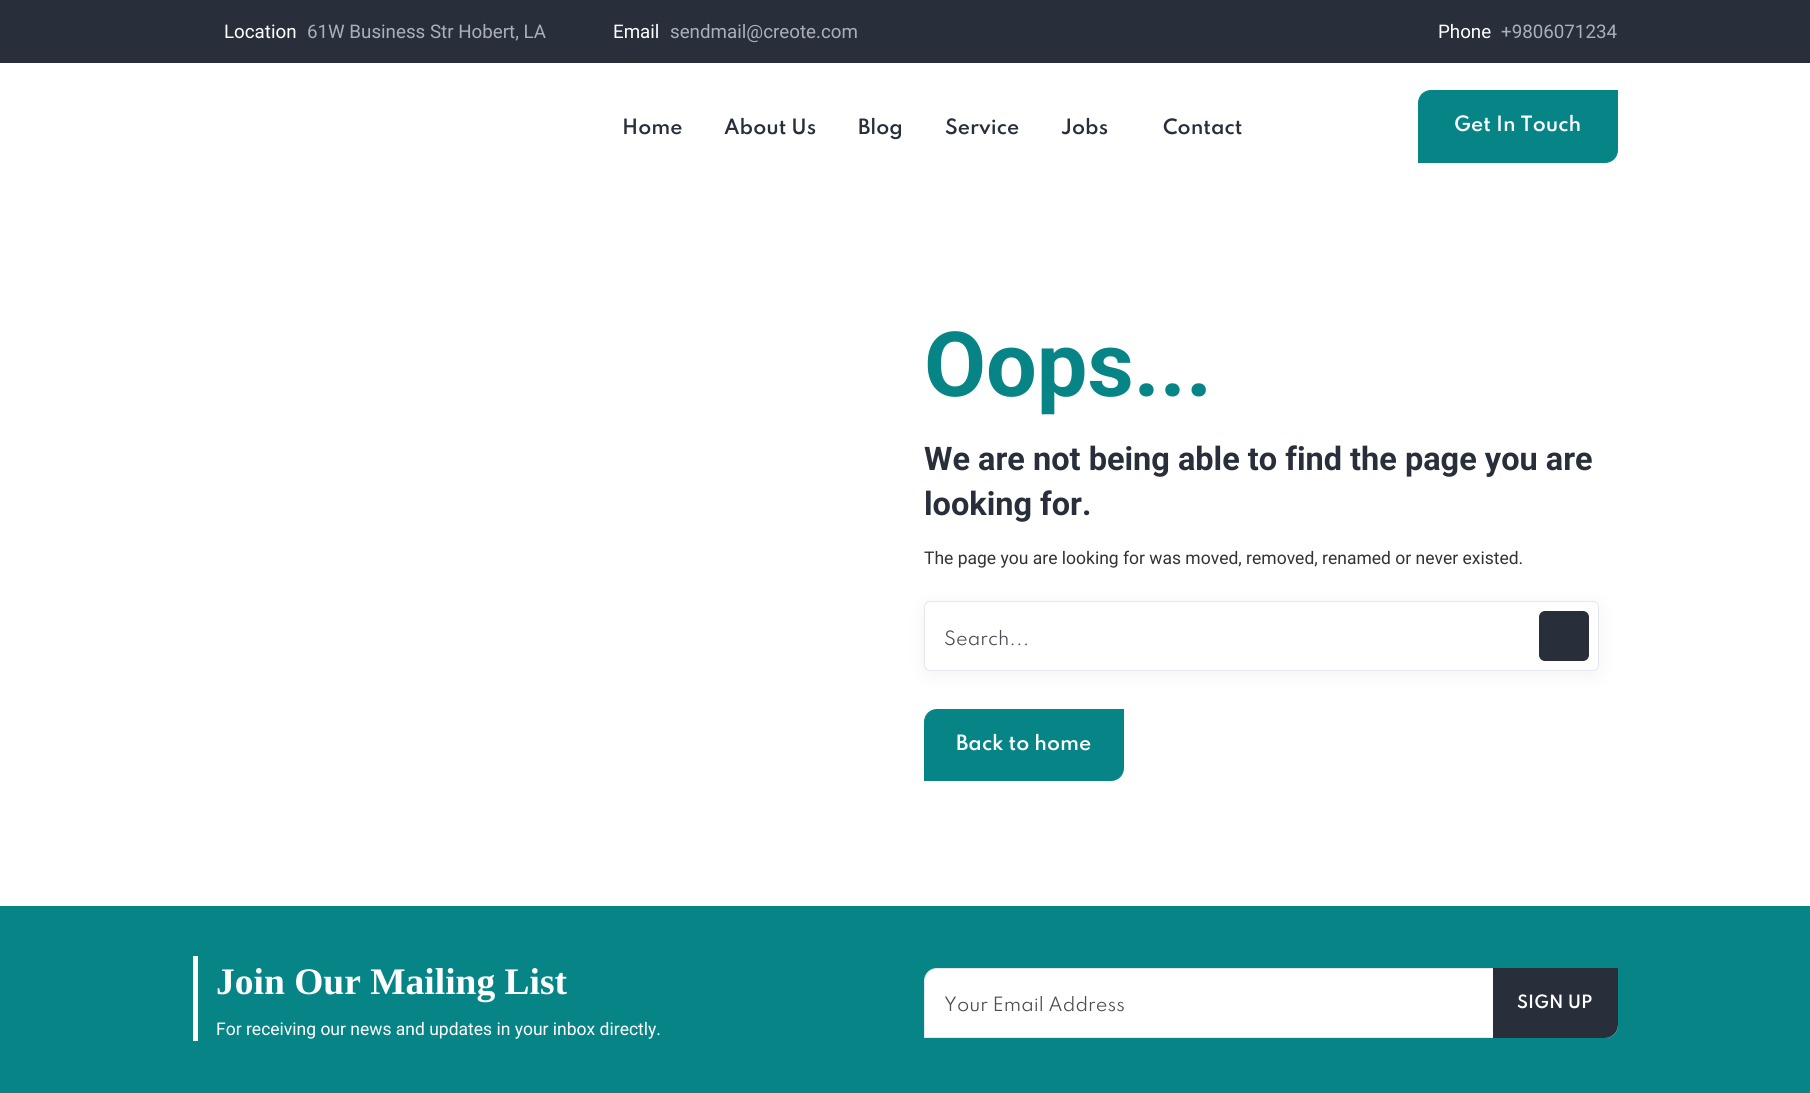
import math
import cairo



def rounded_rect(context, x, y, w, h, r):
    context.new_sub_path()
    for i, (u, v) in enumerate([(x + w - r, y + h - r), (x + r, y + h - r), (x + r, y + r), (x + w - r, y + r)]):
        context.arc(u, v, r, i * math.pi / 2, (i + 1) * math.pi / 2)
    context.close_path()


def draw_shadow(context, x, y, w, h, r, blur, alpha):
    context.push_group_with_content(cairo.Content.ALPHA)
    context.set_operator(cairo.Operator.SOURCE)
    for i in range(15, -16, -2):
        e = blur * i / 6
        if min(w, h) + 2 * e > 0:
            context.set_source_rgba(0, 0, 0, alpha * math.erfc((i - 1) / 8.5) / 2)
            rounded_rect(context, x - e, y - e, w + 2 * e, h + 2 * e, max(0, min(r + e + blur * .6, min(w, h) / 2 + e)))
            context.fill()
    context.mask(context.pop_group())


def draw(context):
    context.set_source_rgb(1, 1, 1)
    context.paint()
    context.set_source_rgb(40 / 255, 47 / 255, 59 / 255)
    context.rectangle(0, 0, 1810, 63)
    context.fill()
    context.set_source_rgb(7 / 255, 133 / 255, 134 / 255)
    context.new_path()
    context.move_to(1431, 90.5)
    context.line_to(1617.5, 90.5)
    context.line_to(1617.5, 150)
    context.curve_to(1617.5, 157, 1612, 162.5, 1605, 162.5)
    context.line_to(1418.5, 162.5)
    context.line_to(1418.5, 103)
    context.curve_to(1418.5, 96, 1424, 90.5, 1431, 90.5)
    context.close_path()
    context.fill_preserve()
    context.set_line_width(1)
    context.stroke()
    context.set_source_rgb(0, 0, 0)
    draw_shadow(context, 924, 605, 675, 70, 6, 10, 0.05)
    context.set_source_rgb(1, 1, 1)
    rounded_rect(context, 924.5, 601.5, 674, 69, 5.5)
    context.fill_preserve()
    context.set_source_rgb(228 / 255, 231 / 255, 238 / 255)
    context.stroke()
    context.set_source_rgb(40 / 255, 47 / 255, 59 / 255)
    rounded_rect(context, 1539, 611, 50, 50, 6)
    context.fill()
    context.set_source_rgb(7 / 255, 133 / 255, 134 / 255)
    context.new_path()
    context.move_to(937, 709.5)
    context.line_to(1123.5, 709.5)
    context.line_to(1123.5, 768)
    context.curve_to(1123.5, 775, 1118, 780.5, 1111, 780.5)
    context.line_to(924.5, 780.5)
    context.line_to(924.5, 722)
    context.curve_to(924.5, 715, 930, 709.5, 937, 709.5)
    context.close_path()
    context.fill_preserve()
    context.stroke()
    context.rectangle(0, 906, 1810, 187)
    context.fill()
    context.set_source_rgb(1, 1, 1)
    context.rectangle(193, 956, 5, 85)
    context.fill()
    context.new_path()
    context.move_to(937, 968.5)
    context.line_to(1617.5, 968.5)
    context.line_to(1617.5, 1025)
    context.curve_to(1617.5, 1032, 1612, 1037.5, 1605, 1037.5)
    context.line_to(924.5, 1037.5)
    context.line_to(924.5, 981)
    context.curve_to(924.5, 974, 930, 968.5, 937, 968.5)
    context.close_path()
    context.fill_preserve()
    context.set_source_rgb(228 / 255, 231 / 255, 238 / 255)
    context.stroke()
    context.set_source_rgb(40 / 255, 47 / 255, 59 / 255)
    context.new_path()
    context.move_to(1493, 968)
    context.line_to(1618, 968)
    context.line_to(1618, 1025)
    context.curve_to(1618, 1032, 1612, 1038, 1605, 1038)
    context.line_to(1493, 1038)
    context.close_path()
    context.fill()
    context.select_font_face("Roboto")
    context.set_font_size(18.75)
    context.set_source_rgb(1, 1, 1)
    context.move_to(224, 38)
    context.show_text("Location")
    context.set_source_rgb(170 / 255, 175 / 255, 184 / 255)
    context.move_to(307, 38)
    context.show_text("61W Business Str Hobert, LA")
    context.set_source_rgb(1, 1, 1)
    context.move_to(613, 38)
    context.show_text("Email")
    context.set_source_rgb(170 / 255, 175 / 255, 184 / 255)
    context.move_to(670, 38)
    context.show_text("sendmail@creote.com")
    context.set_source_rgb(1, 1, 1)
    context.move_to(1438, 38)
    context.show_text("Phone")
    context.set_source_rgb(170 / 255, 175 / 255, 184 / 255)
    context.move_to(1501, 38)
    context.show_text("+9806071234")
    context.select_font_face("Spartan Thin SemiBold")
    context.set_source_rgb(40 / 255, 47 / 255, 59 / 255)
    context.move_to(622, 134)
    context.show_text("Home")
    context.move_to(724, 134)
    context.show_text("About Us")
    context.move_to(858, 134)
    context.show_text("Blog")
    context.move_to(945, 134)
    context.show_text("Service")
    context.move_to(1061, 134)
    context.show_text("Jobs")
    context.move_to(1163, 134)
    context.show_text("Contact")
    context.set_source_rgb(1, 1, 1)
    context.move_to(1454, 131)
    context.show_text("Get In Touch")
    context.select_font_face("Roboto", cairo.FontSlant.NORMAL, cairo.FontWeight.BOLD)
    context.set_font_size(90)
    context.set_source_rgb(7 / 255, 133 / 255, 134 / 255)
    context.move_to(924, 396)
    context.show_text("Oops...")
    context.set_font_size(32.5)
    context.set_source_rgb(40 / 255, 47 / 255, 59 / 255)
    context.move_to(924, 470)
    context.show_text("We are not being able to find the page you are")
    context.move_to(924, 515)
    context.show_text("looking for.")
    context.select_font_face("Roboto")
    context.set_font_size(17.5)
    context.set_source_rgb(51 / 255, 51 / 255, 51 / 255)
    context.move_to(924, 564)
    context.show_text("The page you are looking for was moved, removed, renamed or never existed.")
    context.select_font_face("Spartan Thin")
    context.set_source_rgb(74 / 255, 78 / 255, 86 / 255)
    context.move_to(944, 645)
    context.show_text("Search...")
    context.select_font_face("Spartan Thin SemiBold")
    context.set_font_size(18.75)
    context.set_source_rgb(1, 1, 1)
    context.move_to(956, 750)
    context.show_text("Back to home")
    context.select_font_face("Liberation Serif", cairo.FontSlant.NORMAL, cairo.FontWeight.BOLD)
    context.set_font_size(37.5)
    context.move_to(216, 994)
    context.show_text("Join Our Mailing List")
    context.select_font_face("Roboto")
    context.set_font_size(17.5)
    context.move_to(216, 1035)
    context.show_text("For receiving our news and updates in your inbox directly.")
    context.select_font_face("Spartan Thin")
    context.set_source_rgb(74 / 255, 78 / 255, 86 / 255)
    context.move_to(944, 1011)
    context.show_text("Your Email Address")
    context.select_font_face("Spartan Thin SemiBold")
    context.set_font_size(16.25)
    context.set_source_rgb(1, 1, 1)
    context.move_to(1517, 1008)
    context.show_text("SIGN UP")


surface = cairo.ImageSurface(cairo.Format.RGB24, 1810, 1093)
context = cairo.Context(surface)
options = cairo.FontOptions()
options.set_hint_metrics(cairo.HintMetrics.OFF)
options.set_hint_style(cairo.HintStyle.NONE)
context.set_font_options(options)
context.set_miter_limit(4)
draw(context)
surface.write_to_png("out.png")
